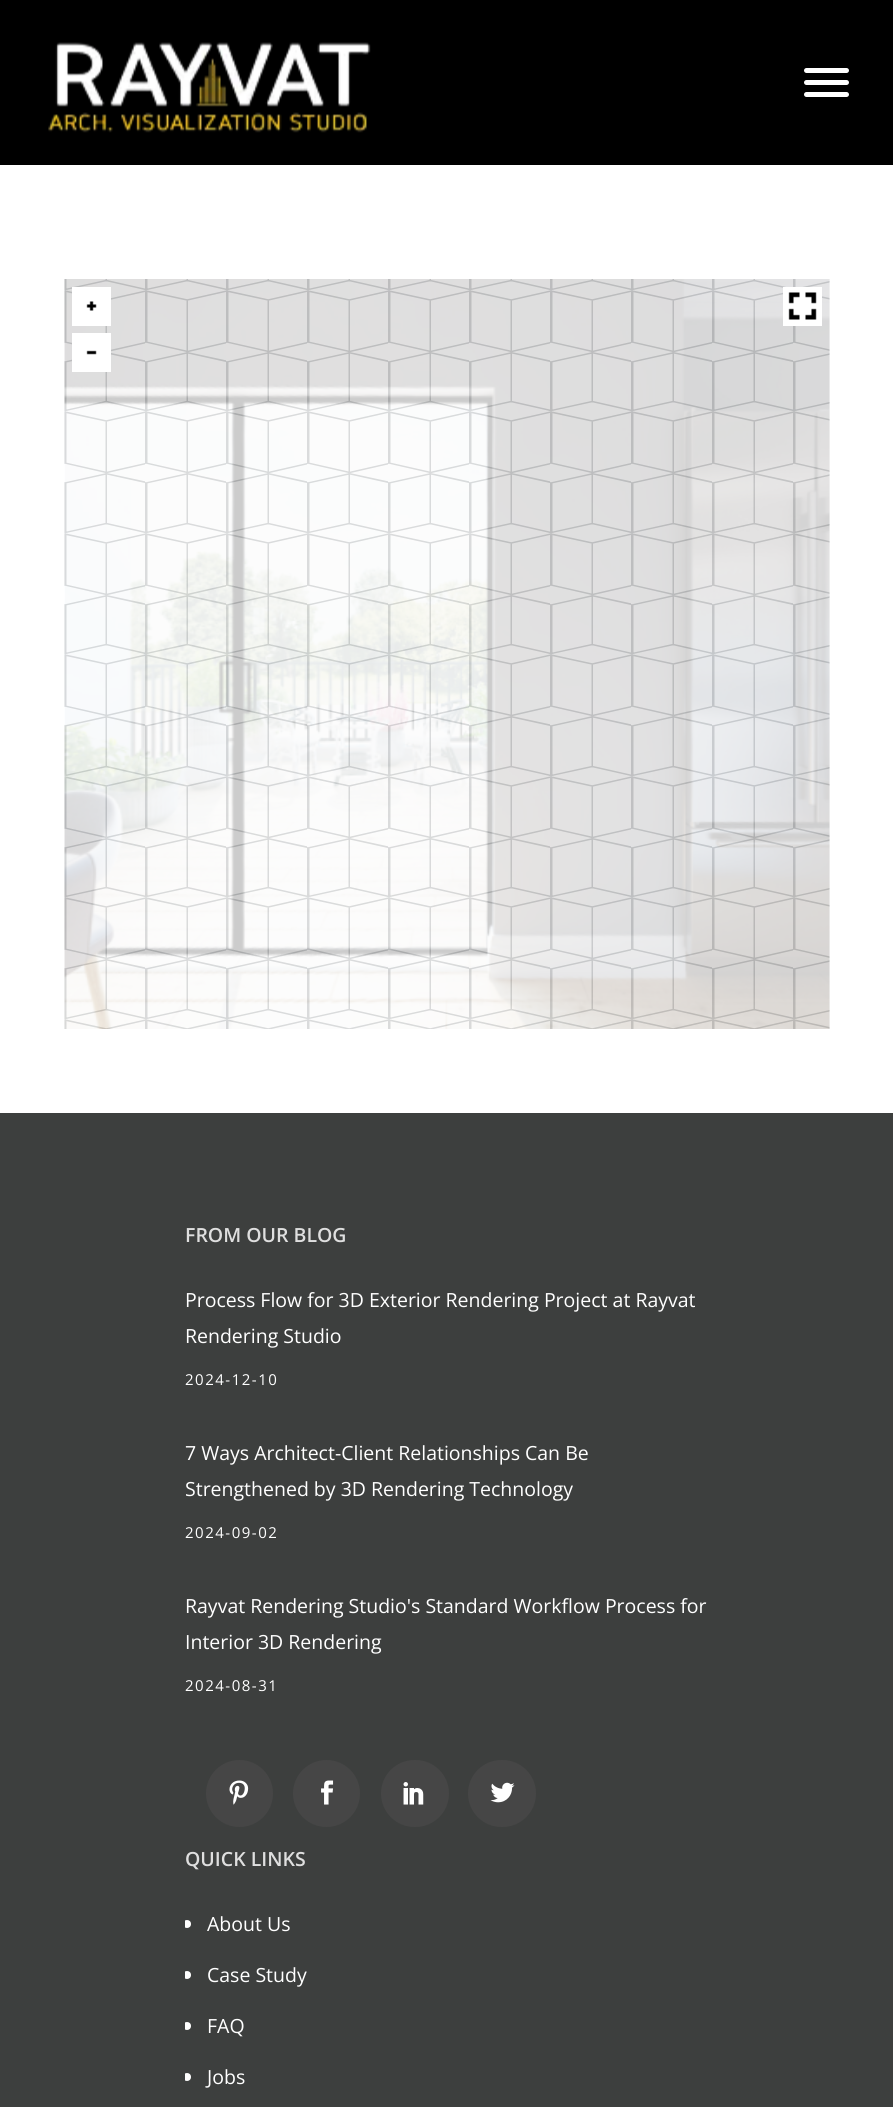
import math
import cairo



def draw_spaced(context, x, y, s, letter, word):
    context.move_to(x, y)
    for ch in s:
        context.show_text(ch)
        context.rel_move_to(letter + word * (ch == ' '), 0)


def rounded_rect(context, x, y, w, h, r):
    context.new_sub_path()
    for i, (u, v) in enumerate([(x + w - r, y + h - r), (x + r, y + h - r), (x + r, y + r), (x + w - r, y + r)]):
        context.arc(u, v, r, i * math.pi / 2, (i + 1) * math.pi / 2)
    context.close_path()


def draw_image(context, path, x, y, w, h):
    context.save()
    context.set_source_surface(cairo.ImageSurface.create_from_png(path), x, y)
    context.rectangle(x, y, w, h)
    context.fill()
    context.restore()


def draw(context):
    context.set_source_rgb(1, 1, 1)
    context.paint()
    context.set_source_rgb(0, 0, 0)
    context.rectangle(0, 0, 893, 165)
    context.fill()
    draw_image(context, "images/1.png", 48, 42, 323, 91)
    context.set_source_rgb(1, 1, 1)
    rounded_rect(context, 804, 68, 45, 5, 2.5)
    context.fill()
    rounded_rect(context, 804, 80, 45, 5, 2.5)
    context.fill()
    rounded_rect(context, 804, 92, 45, 5, 2.5)
    context.fill()
    context.set_source_rgb(251 / 255, 251 / 255, 251 / 255)
    context.rectangle(65, 279, 765, 750)
    context.fill()
    draw_image(context, "images/2.png", 64, 279, 766, 750)
    draw_image(context, "images/3.png", 64, 279, 766, 750)
    context.set_source_rgb(1, 1, 1)
    context.rectangle(72, 287, 39, 39)
    context.fill()
    draw_image(context, "images/4.png", 86, 301, 11, 10)
    context.rectangle(783, 287, 39, 39)
    context.fill()
    draw_image(context, "images/5.png", 788, 292, 29, 28)
    context.rectangle(72, 333, 39, 39)
    context.fill()
    draw_image(context, "images/6.png", 86, 350, 11, 5)
    context.set_source_rgb(61 / 255, 63 / 255, 62 / 255)
    context.rectangle(0, 1113, 893, 994)
    context.fill()
    context.set_source_rgb(70 / 255, 70 / 255, 70 / 255)
    context.arc(239.5, 1793.5, 33.5, 0, 2 * math.pi)
    context.fill()
    draw_image(context, "images/7.png", 229, 1780, 20, 25)
    context.arc(326.5, 1793.5, 33.5, 0, 2 * math.pi)
    context.fill()
    draw_image(context, "images/8.png", 321, 1780, 13, 25)
    rounded_rect(context, 381, 1760, 68, 67, 33.5)
    context.fill()
    draw_image(context, "images/9.png", 403, 1782, 21, 23)
    rounded_rect(context, 468, 1760, 68, 67, 33.5)
    context.fill()
    draw_image(context, "images/10.png", 490, 1782, 25, 21)
    context.save()
    context.rectangle(185, 1842, 525, 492)
    context.clip()
    context.set_source_rgb(1, 1, 1)
    context.arc(187, 1924, 4, 0, 2 * math.pi)
    context.fill()
    context.arc(187, 1975, 4, 0, 2 * math.pi)
    context.fill()
    context.arc(187, 2026, 4, 0, 2 * math.pi)
    context.fill()
    context.arc(187, 2077, 4, 0, 2 * math.pi)
    context.fill()
    context.restore()
    context.select_font_face("Open Sans SemiBold")
    context.set_font_size(19.5)
    context.set_source_rgb(223 / 255, 223 / 255, 223 / 255)
    context.move_to(185, 1242)
    context.show_text("FROM OUR BLOG")
    context.select_font_face("Open Sans")
    context.set_source_rgb(1, 1, 1)
    context.move_to(185, 1307)
    context.show_text("Process Flow for 3D Exterior Rendering Project at Rayvat")
    context.move_to(185, 1343)
    context.show_text("Rendering Studio")
    context.set_font_size(15)
    draw_spaced(context, 185, 1385, "2024-12-10", 1.5, 0)
    context.set_font_size(19.5)
    context.move_to(185, 1460)
    context.show_text("7 Ways Architect-Client Relationships Can Be")
    context.move_to(185, 1496)
    context.show_text("Strengthened by 3D Rendering Technology")
    context.set_font_size(15)
    draw_spaced(context, 185, 1538, "2024-09-02", 1.5, 0)
    context.set_font_size(19.5)
    context.move_to(185, 1613)
    context.show_text("Rayvat Rendering Studio's Standard Workflow Process for")
    context.move_to(185, 1649)
    context.show_text("Interior 3D Rendering")
    context.set_font_size(15)
    draw_spaced(context, 185, 1691, "2024-08-31", 1.5, 0)
    context.select_font_face("Open Sans SemiBold")
    context.set_font_size(19.5)
    context.set_source_rgb(223 / 255, 223 / 255, 223 / 255)
    context.move_to(185, 1866)
    context.show_text("QUICK LINKS")
    context.select_font_face("Open Sans")
    context.set_source_rgb(1, 1, 1)
    context.move_to(207, 1931)
    context.show_text("About Us")
    context.move_to(207, 1982)
    context.show_text("Case Study")
    context.move_to(207, 2033)
    context.show_text("FAQ")
    context.move_to(207, 2084)
    context.show_text("Jobs")


surface = cairo.ImageSurface(cairo.Format.RGB24, 893, 2107)
context = cairo.Context(surface)
options = cairo.FontOptions()
options.set_hint_metrics(cairo.HintMetrics.OFF)
options.set_hint_style(cairo.HintStyle.NONE)
context.set_font_options(options)
context.set_miter_limit(4)
draw(context)
surface.write_to_png("out.png")
